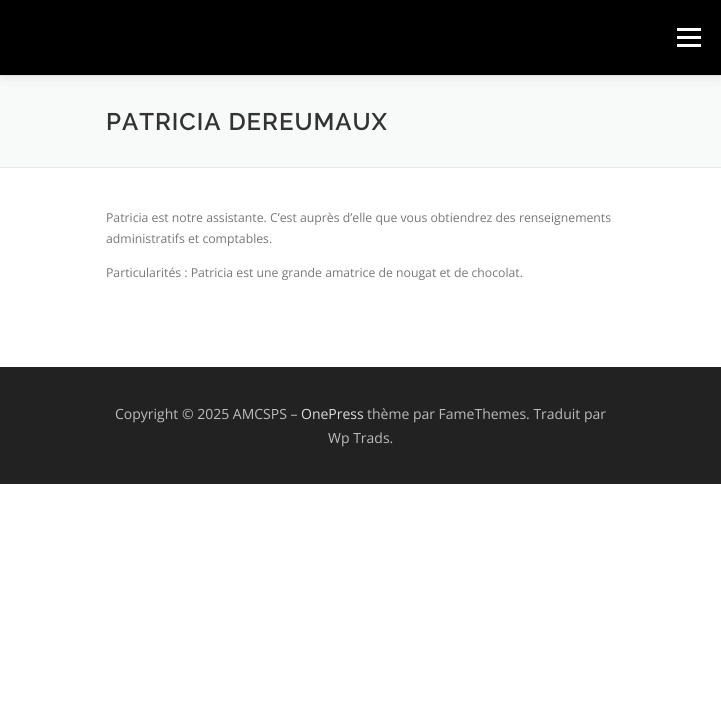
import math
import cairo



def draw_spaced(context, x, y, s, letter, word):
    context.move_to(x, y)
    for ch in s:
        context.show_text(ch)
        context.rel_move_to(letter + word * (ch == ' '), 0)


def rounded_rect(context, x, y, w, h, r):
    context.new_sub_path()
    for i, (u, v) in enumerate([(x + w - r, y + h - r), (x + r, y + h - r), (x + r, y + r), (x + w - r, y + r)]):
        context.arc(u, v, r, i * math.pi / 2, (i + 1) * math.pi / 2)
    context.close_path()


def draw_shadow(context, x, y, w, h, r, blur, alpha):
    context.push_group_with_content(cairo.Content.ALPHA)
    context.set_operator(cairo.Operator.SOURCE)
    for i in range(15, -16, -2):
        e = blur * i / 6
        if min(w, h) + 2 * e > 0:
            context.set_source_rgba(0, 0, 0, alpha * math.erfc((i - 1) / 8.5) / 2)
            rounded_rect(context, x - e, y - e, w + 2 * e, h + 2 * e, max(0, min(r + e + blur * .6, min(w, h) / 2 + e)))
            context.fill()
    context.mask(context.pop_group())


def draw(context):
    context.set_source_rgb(1, 1, 1)
    context.paint()
    context.set_source_rgb(248 / 255, 249 / 255, 249 / 255)
    context.rectangle(0, 76, 721, 91)
    context.fill()
    context.set_source_rgb(233 / 255, 233 / 255, 233 / 255)
    context.rectangle(0, 75, 721, 1)
    context.fill()
    context.set_source_rgb(50 / 255, 50 / 255, 50 / 255)
    draw_shadow(context, 0, 5, 721, 75, 0, 5, 0.06)
    context.set_source_rgb(0, 0, 0)
    context.rectangle(0, 0, 721, 75)
    context.fill()
    context.set_source_rgb(1, 1, 1)
    context.rectangle(677, 36, 24, 3)
    context.fill()
    context.rectangle(677, 28, 24, 3)
    context.fill()
    context.rectangle(677, 44, 24, 3)
    context.fill()
    context.set_source_rgb(233 / 255, 233 / 255, 233 / 255)
    context.rectangle(0, 167, 721, 1)
    context.fill()
    context.set_source_rgb(34 / 255, 34 / 255, 34 / 255)
    context.rectangle(0, 367, 721, 117)
    context.fill()
    context.select_font_face("Raleway SemiBold")
    context.set_font_size(24)
    context.set_source_rgb(51 / 255, 51 / 255, 51 / 255)
    draw_spaced(context, 106, 130, "PATRICIA DEREUMAUX", 1, 0)
    context.select_font_face("Open Sans")
    context.set_font_size(12.25)
    context.set_source_rgb(119 / 255, 119 / 255, 119 / 255)
    context.move_to(106, 222)
    context.show_text("Patricia est notre assistante. C’est auprès d’elle que vous obtiendrez des renseignements")
    context.move_to(106, 243)
    context.show_text("administratifs et comptables.")
    context.move_to(106, 277)
    context.show_text("Particularités : Patricia est une grande amatrice de nougat et de chocolat.")
    context.set_font_size(14)
    context.set_source_rgb(187 / 255, 187 / 255, 187 / 255)
    context.move_to(115, 419)
    context.show_text("Copyright © 2025 AMCSPS –")
    context.set_source_rgb(221 / 255, 221 / 255, 221 / 255)
    context.move_to(301, 419)
    context.show_text("OnePress")
    context.set_source_rgb(187 / 255, 187 / 255, 187 / 255)
    context.move_to(367, 419)
    context.show_text("thème par FameThemes. Traduit par")
    context.move_to(328, 443)
    context.show_text("Wp Trads.")


surface = cairo.ImageSurface(cairo.Format.RGB24, 721, 709)
context = cairo.Context(surface)
options = cairo.FontOptions()
options.set_hint_metrics(cairo.HintMetrics.OFF)
options.set_hint_style(cairo.HintStyle.NONE)
context.set_font_options(options)
context.set_miter_limit(4)
draw(context)
surface.write_to_png("out.png")
